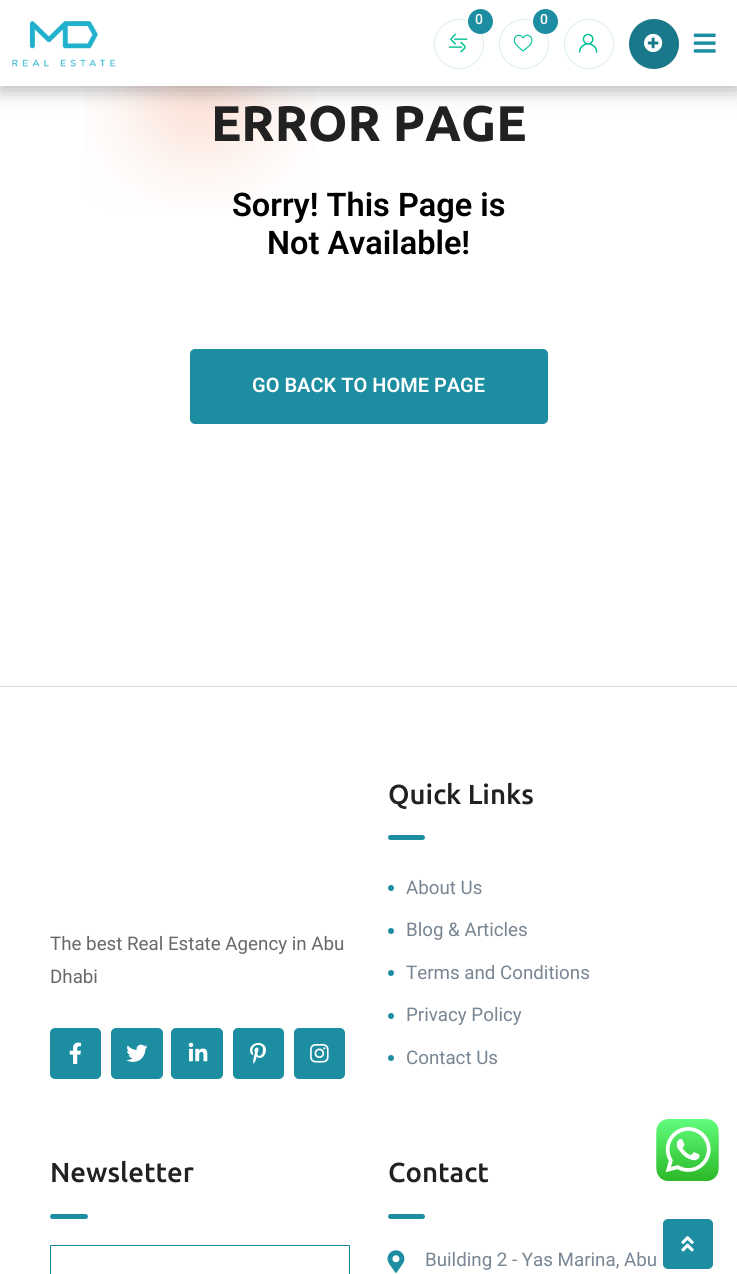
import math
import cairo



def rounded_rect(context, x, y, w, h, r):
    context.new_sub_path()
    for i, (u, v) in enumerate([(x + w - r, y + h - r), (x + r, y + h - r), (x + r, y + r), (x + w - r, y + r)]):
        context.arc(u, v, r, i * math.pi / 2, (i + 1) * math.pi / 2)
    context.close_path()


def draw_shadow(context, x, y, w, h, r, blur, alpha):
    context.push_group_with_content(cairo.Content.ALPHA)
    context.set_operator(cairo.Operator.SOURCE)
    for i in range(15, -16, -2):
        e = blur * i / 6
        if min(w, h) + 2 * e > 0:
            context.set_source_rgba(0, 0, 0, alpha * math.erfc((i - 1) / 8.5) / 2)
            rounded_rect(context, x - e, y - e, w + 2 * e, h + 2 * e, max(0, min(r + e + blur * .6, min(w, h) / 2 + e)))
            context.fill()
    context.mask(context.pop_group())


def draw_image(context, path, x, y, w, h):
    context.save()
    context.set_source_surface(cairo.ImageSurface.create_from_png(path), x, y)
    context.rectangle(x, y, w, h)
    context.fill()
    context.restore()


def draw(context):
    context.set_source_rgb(1, 1, 1)
    context.paint()
    draw_image(context, "images/7.png", 84, 86, 232, 123)
    context.set_source_rgb(0, 0, 0)
    draw_shadow(context, 0, 0, 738, 86, 0, 12.5, 0.3)
    context.set_source_rgb(1, 1, 1)
    context.rectangle(0, 0, 737, 86)
    context.fill()
    context.save()
    context.rectangle(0, 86, 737, 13)
    context.clip()
    context.set_source_rgb(87 / 255, 101 / 255, 128 / 255)
    draw_shadow(context, 0, 6, 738, 87, 0, 6, 0.12)
    context.restore()
    context.arc(459, 44, 24.5, 0, 2 * math.pi)
    context.set_source_rgb(220 / 255, 238 / 255, 234 / 255)
    context.set_line_width(1)
    context.stroke()
    context.set_source_rgb(29 / 255, 142 / 255, 162 / 255)
    context.arc(480.5, 21.5, 12.5, 0, 2 * math.pi)
    context.fill()
    draw_image(context, "images/1.png", 448, 33, 20, 20)
    context.arc(524, 44, 24.5, 0, 2 * math.pi)
    context.set_source_rgb(220 / 255, 238 / 255, 234 / 255)
    context.stroke()
    context.set_source_rgb(29 / 255, 142 / 255, 162 / 255)
    context.arc(545.5, 21.5, 12.5, 0, 2 * math.pi)
    context.fill()
    draw_image(context, "images/2.png", 513, 34, 20, 18)
    context.arc(589, 44, 24.5, 0, 2 * math.pi)
    context.set_source_rgb(220 / 255, 238 / 255, 234 / 255)
    context.stroke()
    draw_image(context, "images/3.png", 578, 33, 20, 20)
    context.set_source_rgb(29 / 255, 142 / 255, 162 / 255)
    context.arc(654, 44, 25, 0, 2 * math.pi)
    context.fill()
    context.set_source_rgba(0, 0, 0, 0.15)
    context.arc(654, 44, 25, 0, 2 * math.pi)
    context.fill()
    draw_image(context, "images/4.png", 644, 33, 19, 19)
    draw_image(context, "images/5.png", 693, 33, 23, 20)
    draw_image(context, "images/6.png", 12, 21, 104, 46)
    context.set_source_rgb(29 / 255, 142 / 255, 162 / 255)
    rounded_rect(context, 190, 349, 358, 75, 5)
    context.fill()
    context.set_source_rgb(217 / 255, 217 / 255, 217 / 255)
    context.rectangle(0, 686, 737, 1)
    context.fill()
    context.set_source_rgb(29 / 255, 142 / 255, 162 / 255)
    rounded_rect(context, 50, 1028, 51, 51, 5)
    context.fill()
    draw_image(context, "images/8.png", 69, 1042, 13, 22)
    rounded_rect(context, 111, 1028, 52, 51, 5)
    context.fill()
    draw_image(context, "images/9.png", 126, 1044, 22, 18)
    rounded_rect(context, 171, 1028, 52, 51, 5)
    context.fill()
    draw_image(context, "images/10.png", 188, 1042, 20, 20)
    rounded_rect(context, 233, 1028, 51, 51, 5)
    context.fill()
    draw_image(context, "images/11.png", 250, 1042, 16, 22)
    rounded_rect(context, 294, 1028, 51, 51, 5)
    context.fill()
    draw_image(context, "images/12.png", 310, 1044, 19, 19)
    rounded_rect(context, 388, 835, 37, 5, 2.5)
    context.fill()
    context.arc(391, 888, 3, 0, 2 * math.pi)
    context.fill()
    context.arc(391, 931, 3, 0, 2 * math.pi)
    context.fill()
    context.arc(391, 973, 3, 0, 2 * math.pi)
    context.fill()
    context.arc(391, 1016, 3, 0, 2 * math.pi)
    context.fill()
    context.arc(391, 1058, 3, 0, 2 * math.pi)
    context.fill()
    rounded_rect(context, 50, 1214, 38, 5, 2.5)
    context.fill()
    context.rectangle(50.5, 1245.5, 299, 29)
    context.stroke()
    rounded_rect(context, 388, 1214, 37, 5, 2.5)
    context.fill()
    draw_image(context, "images/13.png", 387, 1250, 18, 23)
    draw_image(context, "images/14.png", 656, 1119, 63, 62)
    rounded_rect(context, 663, 1219, 50, 50, 5)
    context.fill()
    draw_image(context, "images/15.png", 681, 1236, 13, 16)
    context.select_font_face("Roboto Medium")
    context.set_font_size(14)
    context.set_source_rgb(1, 1, 1)
    context.move_to(475, 24)
    context.show_text("0")
    context.move_to(540, 24)
    context.show_text("0")
    context.select_font_face("Ubuntu", cairo.FontSlant.NORMAL, cairo.FontWeight.BOLD)
    context.set_font_size(50)
    context.set_source_rgb(33 / 255, 33 / 255, 33 / 255)
    context.move_to(211, 141)
    context.show_text("ERROR PAGE")
    context.select_font_face("Roboto SemiBold")
    context.set_font_size(32.5)
    context.set_source_rgb(0, 0, 0)
    context.move_to(232, 216)
    context.show_text("Sorry! This Page is")
    context.move_to(267, 254)
    context.show_text("Not Available!")
    context.set_font_size(20)
    context.set_source_rgb(1, 1, 1)
    context.move_to(252, 392)
    context.show_text("GO BACK TO HOME PAGE")
    context.select_font_face("Roboto")
    context.set_font_size(18.75)
    context.set_source_rgb(104 / 255, 104 / 255, 104 / 255)
    context.move_to(50, 950)
    context.show_text("The best Real Estate Agency in Abu")
    context.move_to(50, 983)
    context.show_text("Dhabi")
    context.select_font_face("Ubuntu Medium")
    context.set_font_size(27.5)
    context.set_source_rgb(33 / 255, 33 / 255, 33 / 255)
    context.move_to(388, 804)
    context.show_text("Quick Links")
    context.select_font_face("Roboto")
    context.set_font_size(18.75)
    context.set_source_rgb(120 / 255, 133 / 255, 147 / 255)
    context.move_to(406, 894)
    context.show_text("About Us")
    context.move_to(406, 936)
    context.show_text("Blog & Articles")
    context.move_to(406, 979)
    context.show_text("Terms and Conditions")
    context.move_to(406, 1021)
    context.show_text("Privacy Policy")
    context.move_to(406, 1064)
    context.show_text("Contact Us")
    context.select_font_face("Ubuntu Medium")
    context.set_font_size(27.5)
    context.set_source_rgb(33 / 255, 33 / 255, 33 / 255)
    context.move_to(50, 1182)
    context.show_text("Newsletter")
    context.move_to(388, 1182)
    context.show_text("Contact")
    context.select_font_face("Roboto")
    context.set_font_size(18.75)
    context.set_source_rgb(120 / 255, 133 / 255, 147 / 255)
    context.move_to(425, 1266)
    context.show_text("Building 2 - Yas Marina, Abu")


surface = cairo.ImageSurface(cairo.Format.RGB24, 737, 1274)
context = cairo.Context(surface)
options = cairo.FontOptions()
options.set_hint_metrics(cairo.HintMetrics.OFF)
options.set_hint_style(cairo.HintStyle.NONE)
context.set_font_options(options)
context.set_miter_limit(4)
draw(context)
surface.write_to_png("out.png")
